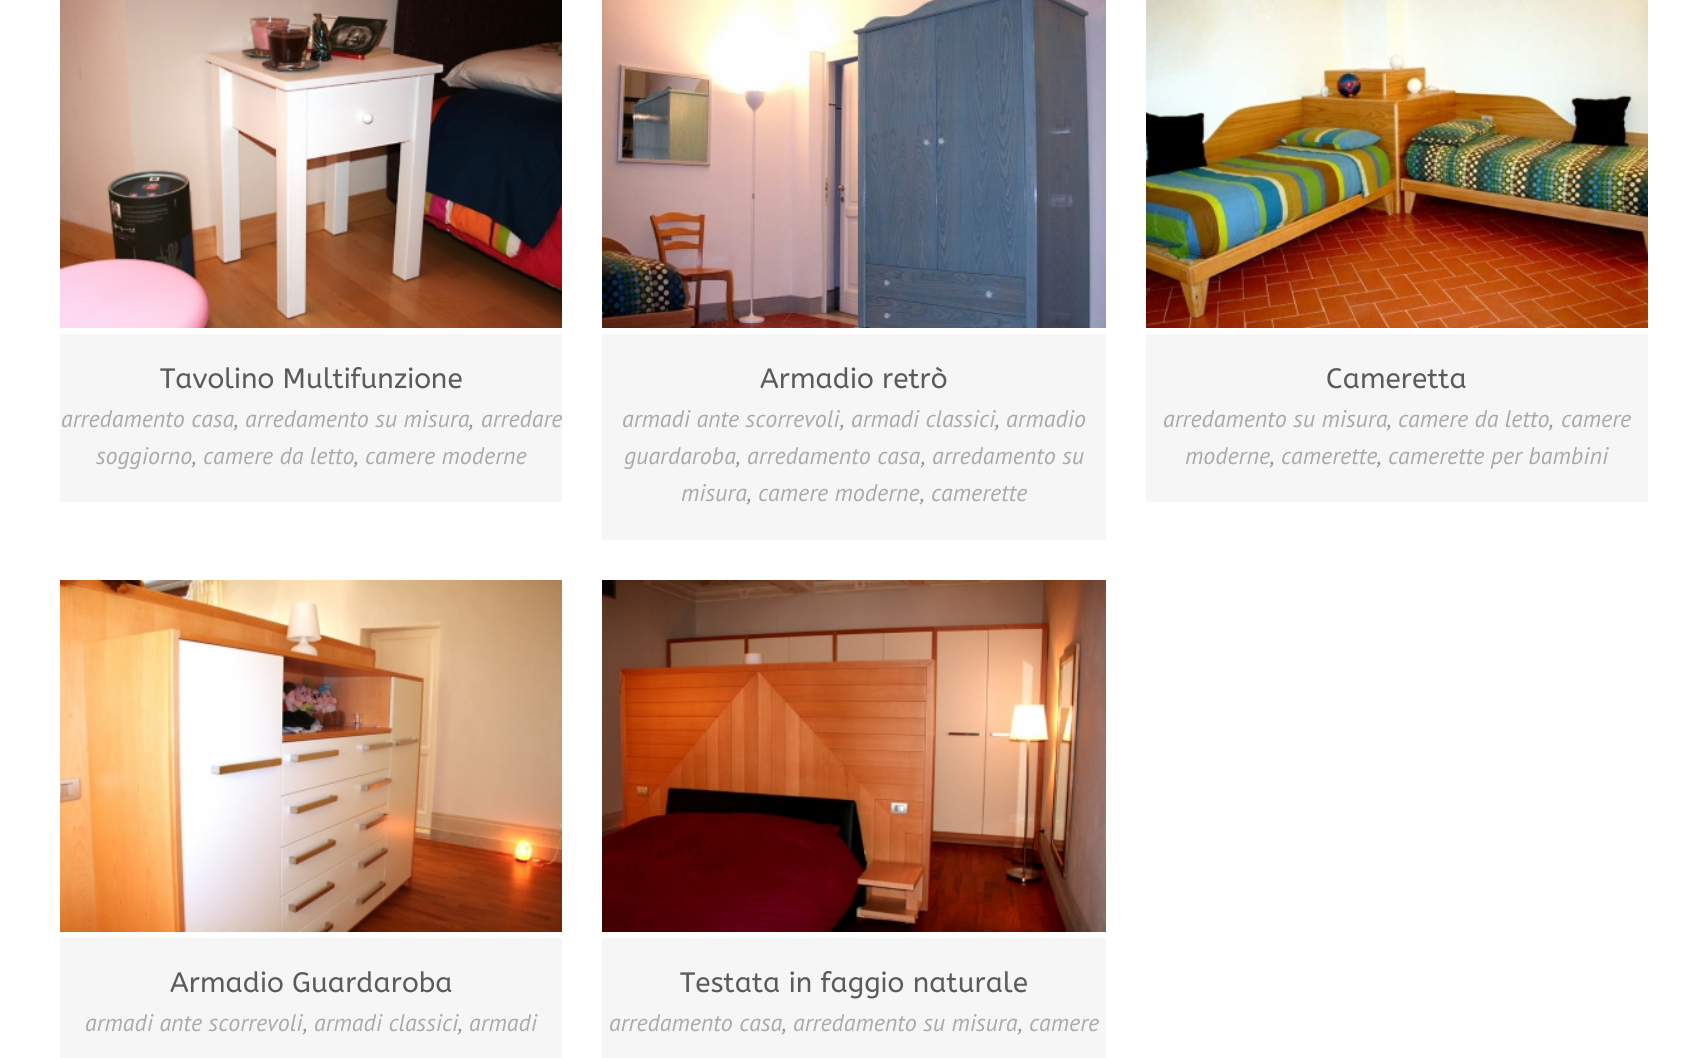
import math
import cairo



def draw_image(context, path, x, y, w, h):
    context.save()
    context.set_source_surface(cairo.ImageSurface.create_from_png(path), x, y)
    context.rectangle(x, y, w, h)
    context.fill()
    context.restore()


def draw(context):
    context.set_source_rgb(1, 1, 1)
    context.paint()
    draw_image(context, "images/1.png", 60, 0, 502, 328)
    context.set_source_rgb(246 / 255, 246 / 255, 246 / 255)
    context.rectangle(60, 334, 502, 168)
    context.fill()
    draw_image(context, "images/2.png", 602, 0, 504, 328)
    context.rectangle(602, 334, 504, 206)
    context.fill()
    draw_image(context, "images/3.png", 1146, 0, 502, 328)
    context.rectangle(1146, 334, 502, 168)
    context.fill()
    draw_image(context, "images/4.png", 60, 580, 502, 352)
    context.rectangle(60, 938, 502, 120)
    context.fill()
    draw_image(context, "images/5.png", 602, 580, 504, 352)
    context.rectangle(602, 938, 504, 120)
    context.fill()
    context.select_font_face("ABeeZee")
    context.set_font_size(28)
    context.set_source_rgb(91 / 255, 91 / 255, 91 / 255)
    context.move_to(160, 388)
    context.show_text("Tavolino Multifunzione")
    context.select_font_face("PT Sans", cairo.FontSlant.ITALIC)
    context.set_font_size(24)
    context.set_source_rgb(170 / 255, 170 / 255, 170 / 255)
    context.move_to(61, 427)
    context.show_text("arredamento casa")
    context.set_source_rgb(149 / 255, 149 / 255, 149 / 255)
    context.move_to(234, 427)
    context.show_text(",")
    context.set_source_rgb(170 / 255, 170 / 255, 170 / 255)
    context.move_to(245, 427)
    context.show_text("arredamento su misura")
    context.set_source_rgb(149 / 255, 149 / 255, 149 / 255)
    context.move_to(469, 427)
    context.show_text(",")
    context.set_source_rgb(170 / 255, 170 / 255, 170 / 255)
    context.move_to(481, 427)
    context.show_text("arredare")
    context.move_to(96, 464)
    context.show_text("soggiorno")
    context.set_source_rgb(149 / 255, 149 / 255, 149 / 255)
    context.move_to(192, 464)
    context.show_text(",")
    context.set_source_rgb(170 / 255, 170 / 255, 170 / 255)
    context.move_to(203, 464)
    context.show_text("camere da letto")
    context.set_source_rgb(149 / 255, 149 / 255, 149 / 255)
    context.move_to(354, 464)
    context.show_text(",")
    context.set_source_rgb(170 / 255, 170 / 255, 170 / 255)
    context.move_to(365, 464)
    context.show_text("camere moderne")
    context.select_font_face("ABeeZee")
    context.set_font_size(28)
    context.set_source_rgb(91 / 255, 91 / 255, 91 / 255)
    context.move_to(760, 388)
    context.show_text("Armadio retrò")
    context.select_font_face("PT Sans", cairo.FontSlant.ITALIC)
    context.set_font_size(24)
    context.set_source_rgb(170 / 255, 170 / 255, 170 / 255)
    context.move_to(622, 427)
    context.show_text("armadi ante scorrevoli")
    context.move_to(851, 427)
    context.show_text("armadi classici")
    context.move_to(1006, 427)
    context.show_text("armadio")
    context.set_source_rgb(149 / 255, 149 / 255, 149 / 255)
    context.move_to(840, 427)
    context.show_text(",")
    context.move_to(995, 427)
    context.show_text(",")
    context.set_source_rgb(170 / 255, 170 / 255, 170 / 255)
    context.move_to(624, 464)
    context.show_text("guardaroba")
    context.set_source_rgb(149 / 255, 149 / 255, 149 / 255)
    context.move_to(736, 464)
    context.show_text(",")
    context.set_source_rgb(170 / 255, 170 / 255, 170 / 255)
    context.move_to(747, 464)
    context.show_text("arredamento casa")
    context.set_source_rgb(149 / 255, 149 / 255, 149 / 255)
    context.move_to(921, 464)
    context.show_text(",")
    context.set_source_rgb(170 / 255, 170 / 255, 170 / 255)
    context.move_to(932, 464)
    context.show_text("arredamento su")
    context.move_to(681, 501)
    context.show_text("misura")
    context.set_source_rgb(149 / 255, 149 / 255, 149 / 255)
    context.move_to(747, 501)
    context.show_text(",")
    context.set_source_rgb(170 / 255, 170 / 255, 170 / 255)
    context.move_to(758, 501)
    context.show_text("camere moderne")
    context.set_source_rgb(149 / 255, 149 / 255, 149 / 255)
    context.move_to(920, 501)
    context.show_text(",")
    context.set_source_rgb(170 / 255, 170 / 255, 170 / 255)
    context.move_to(931, 501)
    context.show_text("camerette")
    context.select_font_face("ABeeZee")
    context.set_font_size(28)
    context.set_source_rgb(91 / 255, 91 / 255, 91 / 255)
    context.move_to(1326, 388)
    context.show_text("Cameretta")
    context.select_font_face("PT Sans", cairo.FontSlant.ITALIC)
    context.set_font_size(24)
    context.set_source_rgb(170 / 255, 170 / 255, 170 / 255)
    context.move_to(1163, 427)
    context.show_text("arredamento su misura")
    context.set_source_rgb(149 / 255, 149 / 255, 149 / 255)
    context.move_to(1387, 427)
    context.show_text(",")
    context.set_source_rgb(170 / 255, 170 / 255, 170 / 255)
    context.move_to(1398, 427)
    context.show_text("camere da letto")
    context.set_source_rgb(149 / 255, 149 / 255, 149 / 255)
    context.move_to(1549, 427)
    context.show_text(",")
    context.set_source_rgb(170 / 255, 170 / 255, 170 / 255)
    context.move_to(1561, 427)
    context.show_text("camere")
    context.move_to(1185, 464)
    context.show_text("moderne")
    context.set_source_rgb(149 / 255, 149 / 255, 149 / 255)
    context.move_to(1270, 464)
    context.show_text(",")
    context.set_source_rgb(170 / 255, 170 / 255, 170 / 255)
    context.move_to(1281, 464)
    context.show_text("camerette")
    context.set_source_rgb(149 / 255, 149 / 255, 149 / 255)
    context.move_to(1377, 464)
    context.show_text(",")
    context.set_source_rgb(170 / 255, 170 / 255, 170 / 255)
    context.move_to(1388, 464)
    context.show_text("camerette per bambini")
    context.select_font_face("ABeeZee")
    context.set_font_size(28)
    context.set_source_rgb(91 / 255, 91 / 255, 91 / 255)
    context.move_to(170, 992)
    context.show_text("Armadio Guardaroba")
    context.select_font_face("PT Sans", cairo.FontSlant.ITALIC)
    context.set_font_size(24)
    context.set_source_rgb(170 / 255, 170 / 255, 170 / 255)
    context.move_to(85, 1031)
    context.show_text("armadi ante scorrevoli")
    context.set_source_rgb(149 / 255, 149 / 255, 149 / 255)
    context.move_to(303, 1031)
    context.show_text(",")
    context.set_source_rgb(170 / 255, 170 / 255, 170 / 255)
    context.move_to(314, 1031)
    context.show_text("armadi classici")
    context.set_source_rgb(149 / 255, 149 / 255, 149 / 255)
    context.move_to(458, 1031)
    context.show_text(",")
    context.set_source_rgb(170 / 255, 170 / 255, 170 / 255)
    context.move_to(469, 1031)
    context.show_text("armadi")
    context.select_font_face("ABeeZee")
    context.set_font_size(28)
    context.set_source_rgb(91 / 255, 91 / 255, 91 / 255)
    context.move_to(680, 992)
    context.show_text("Testata in faggio naturale")
    context.select_font_face("PT Sans", cairo.FontSlant.ITALIC)
    context.set_font_size(24)
    context.set_source_rgb(170 / 255, 170 / 255, 170 / 255)
    context.move_to(609, 1031)
    context.show_text("arredamento casa")
    context.set_source_rgb(149 / 255, 149 / 255, 149 / 255)
    context.move_to(782, 1031)
    context.show_text(",")
    context.set_source_rgb(170 / 255, 170 / 255, 170 / 255)
    context.move_to(793, 1031)
    context.show_text("arredamento su misura")
    context.set_source_rgb(149 / 255, 149 / 255, 149 / 255)
    context.move_to(1018, 1031)
    context.show_text(",")
    context.set_source_rgb(170 / 255, 170 / 255, 170 / 255)
    context.move_to(1029, 1031)
    context.show_text("camere")


surface = cairo.ImageSurface(cairo.Format.RGB24, 1707, 1058)
context = cairo.Context(surface)
options = cairo.FontOptions()
options.set_hint_metrics(cairo.HintMetrics.OFF)
options.set_hint_style(cairo.HintStyle.NONE)
context.set_font_options(options)
context.set_miter_limit(4)
draw(context)
surface.write_to_png("out.png")
